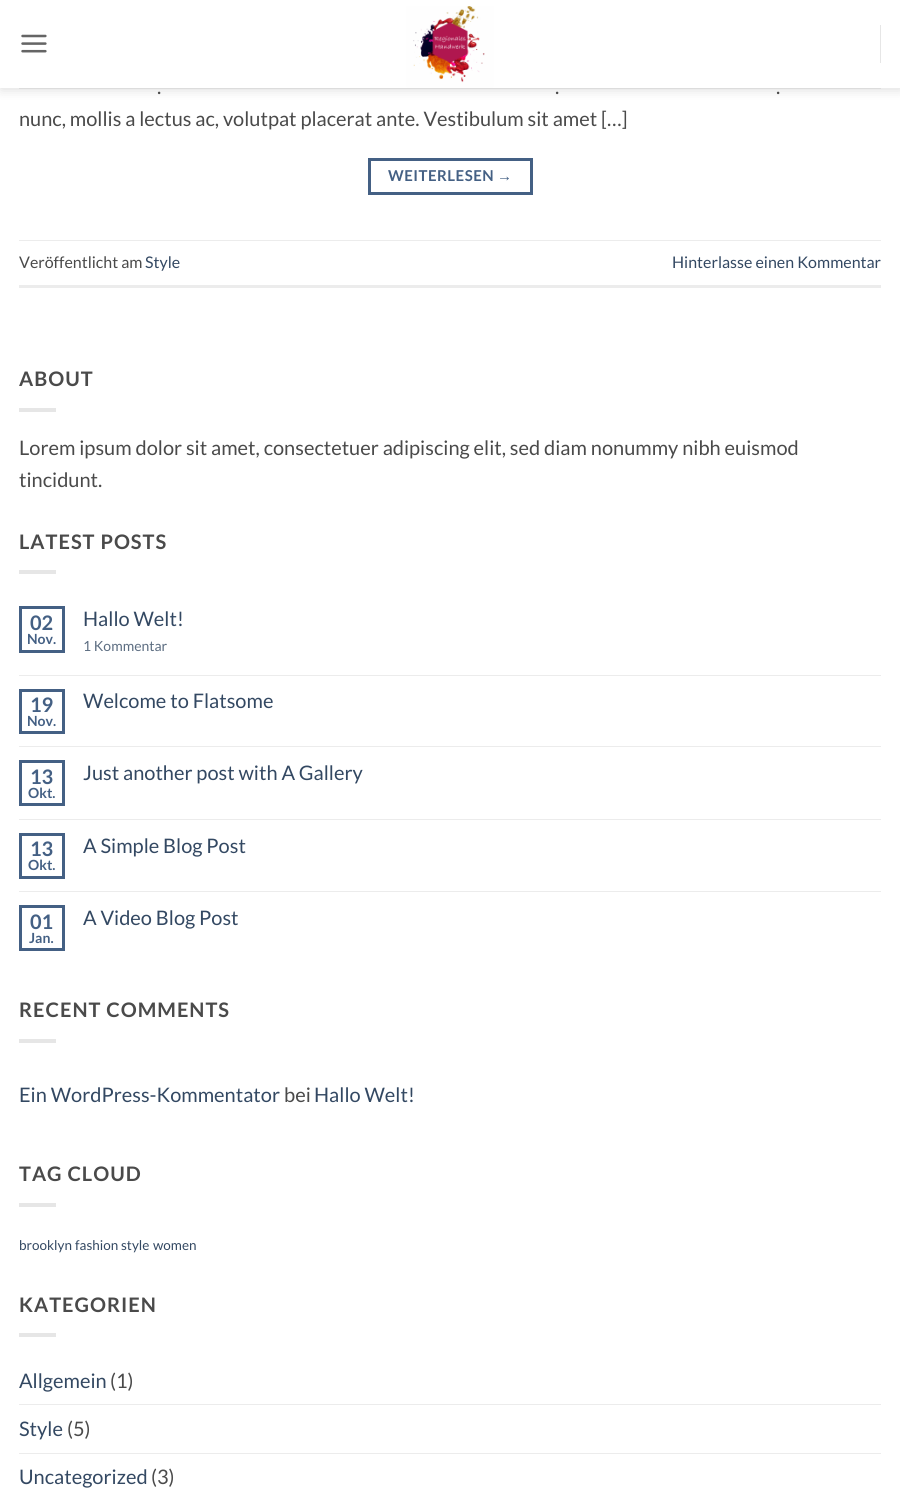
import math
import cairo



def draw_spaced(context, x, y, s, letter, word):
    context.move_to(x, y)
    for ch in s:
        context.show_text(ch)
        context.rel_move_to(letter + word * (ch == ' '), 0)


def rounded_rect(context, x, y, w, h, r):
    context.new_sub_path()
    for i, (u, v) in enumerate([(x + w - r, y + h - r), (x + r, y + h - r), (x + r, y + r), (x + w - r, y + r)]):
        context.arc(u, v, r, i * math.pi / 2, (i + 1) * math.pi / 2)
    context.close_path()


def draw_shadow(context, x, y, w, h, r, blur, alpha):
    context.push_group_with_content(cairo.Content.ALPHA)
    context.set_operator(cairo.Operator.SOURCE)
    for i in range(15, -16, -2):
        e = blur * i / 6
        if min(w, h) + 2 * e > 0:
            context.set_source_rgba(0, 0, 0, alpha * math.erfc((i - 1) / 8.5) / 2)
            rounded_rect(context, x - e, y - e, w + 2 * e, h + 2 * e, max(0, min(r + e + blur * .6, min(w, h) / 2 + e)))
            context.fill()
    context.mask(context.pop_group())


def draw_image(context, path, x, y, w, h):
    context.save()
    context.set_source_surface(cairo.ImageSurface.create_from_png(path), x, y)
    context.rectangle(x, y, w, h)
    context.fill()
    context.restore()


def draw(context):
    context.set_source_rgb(1, 1, 1)
    context.paint()
    context.save()
    context.set_fill_rule(cairo.FillRule.EVEN_ODD)
    context.new_path()
    context.move_to(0, 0)
    context.line_to(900, 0)
    context.line_to(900, 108)
    context.line_to(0, 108)
    context.close_path()
    context.move_to(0, 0)
    context.line_to(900, 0)
    context.line_to(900, 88)
    context.line_to(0, 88)
    context.close_path()
    context.clip()
    context.set_source_rgb(0, 0, 0)
    draw_shadow(context, 1, 1, 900, 88, 0, 6, 0.15)
    context.restore()
    draw_image(context, "images/1.png", 21, 34, 26, 19)
    context.set_source_rgba(1, 1, 1, 0.9)
    context.rectangle(0, 87, 900, 1)
    context.fill()
    draw_image(context, "images/2.png", 406, 6, 88, 82)
    context.set_source_rgb(230 / 255, 230 / 255, 230 / 255)
    context.rectangle(880, 25, 1, 38)
    context.fill()
    context.set_source_rgba(74 / 255, 74 / 255, 74 / 255, 0.1)
    context.rectangle(19, 88, 862, 1)
    context.fill()
    context.rectangle(369.5, 159.5, 162, 34)
    context.set_source_rgb(68 / 255, 96 / 255, 132 / 255)
    context.set_line_width(3)
    context.stroke()
    context.set_source_rgb(236 / 255, 236 / 255, 236 / 255)
    context.rectangle(19, 240, 862, 1)
    context.fill()
    context.rectangle(19, 285, 862, 3)
    context.fill()
    context.set_source_rgb(230 / 255, 230 / 255, 230 / 255)
    context.rectangle(19, 408, 37, 4)
    context.fill()
    context.rectangle(19, 570, 37, 4)
    context.fill()
    context.rectangle(20.5, 607.5, 43, 44)
    context.set_source_rgb(68 / 255, 96 / 255, 132 / 255)
    context.stroke()
    context.set_source_rgb(236 / 255, 236 / 255, 236 / 255)
    context.rectangle(19, 675, 862, 1)
    context.fill()
    context.rectangle(20.5, 690.5, 43, 42)
    context.set_source_rgb(68 / 255, 96 / 255, 132 / 255)
    context.stroke()
    context.set_source_rgb(236 / 255, 236 / 255, 236 / 255)
    context.rectangle(19, 746, 862, 1)
    context.fill()
    context.rectangle(20.5, 761.5, 43, 43)
    context.set_source_rgb(68 / 255, 96 / 255, 132 / 255)
    context.stroke()
    context.set_source_rgb(236 / 255, 236 / 255, 236 / 255)
    context.rectangle(19, 819, 862, 1)
    context.fill()
    context.rectangle(20.5, 834.5, 43, 43)
    context.set_source_rgb(68 / 255, 96 / 255, 132 / 255)
    context.stroke()
    context.set_source_rgb(236 / 255, 236 / 255, 236 / 255)
    context.rectangle(19, 891, 862, 1)
    context.fill()
    context.rectangle(20.5, 906.5, 43, 43)
    context.set_source_rgb(68 / 255, 96 / 255, 132 / 255)
    context.stroke()
    context.set_source_rgb(230 / 255, 230 / 255, 230 / 255)
    context.rectangle(19, 1039, 37, 4)
    context.fill()
    context.rectangle(19, 1203, 37, 4)
    context.fill()
    context.rectangle(19, 1333, 37, 4)
    context.fill()
    context.set_source_rgb(236 / 255, 236 / 255, 236 / 255)
    context.rectangle(19, 1404, 862, 1)
    context.fill()
    context.rectangle(19, 1453, 862, 1)
    context.fill()
    context.select_font_face("Lato")
    context.set_font_size(20)
    context.set_source_rgb(74 / 255, 74 / 255, 74 / 255)
    context.move_to(157, 94)
    context.show_text(".")
    context.move_to(555, 94)
    context.show_text(".")
    context.move_to(776, 94)
    context.show_text(".")
    context.move_to(19, 126)
    context.show_text("nunc, mollis a lectus ac, volutpat placerat ante. Vestibulum sit amet […]")
    context.select_font_face("Lato", cairo.FontSlant.NORMAL, cairo.FontWeight.BOLD)
    context.set_font_size(15)
    context.set_source_rgb(68 / 255, 96 / 255, 132 / 255)
    draw_spaced(context, 388, 181, "WEITERLESEN", 0.5, 0)
    context.select_font_face("Liberation Sans", cairo.FontSlant.NORMAL, cairo.FontWeight.BOLD)
    draw_spaced(context, 497, 181, "→", 0.5, 0)
    context.select_font_face("Lato")
    context.set_font_size(16)
    context.set_source_rgb(74 / 255, 74 / 255, 74 / 255)
    context.move_to(19, 268)
    context.show_text("Veröffentlicht am")
    context.set_source_rgb(51 / 255, 72 / 255, 98 / 255)
    context.move_to(145, 268)
    context.show_text("Style")
    context.move_to(672, 268)
    context.show_text("Hinterlasse einen Kommentar")
    context.select_font_face("Lato", cairo.FontSlant.NORMAL, cairo.FontWeight.BOLD)
    context.set_font_size(20)
    context.set_source_rgb(74 / 255, 74 / 255, 74 / 255)
    draw_spaced(context, 19, 386, "ABOUT", 1, 0)
    context.select_font_face("Lato")
    context.move_to(19, 455)
    context.show_text("Lorem ipsum dolor sit amet, consectetuer adipiscing elit, sed diam nonummy nibh euismod")
    context.move_to(19, 487)
    context.show_text("tincidunt.")
    context.select_font_face("Lato", cairo.FontSlant.NORMAL, cairo.FontWeight.BOLD)
    draw_spaced(context, 19, 549, "LATEST POSTS", 1, 0)
    context.set_source_rgb(68 / 255, 96 / 255, 132 / 255)
    context.move_to(30, 630)
    context.show_text("02")
    context.set_font_size(14)
    context.move_to(27, 644)
    context.show_text("Nov.")
    context.select_font_face("Lato")
    context.set_font_size(20)
    context.set_source_rgb(51 / 255, 72 / 255, 98 / 255)
    context.move_to(83, 626)
    context.show_text("Hallo Welt!")
    context.set_font_size(14)
    context.set_source_rgb(92 / 255, 109 / 255, 129 / 255)
    context.move_to(83, 651)
    context.show_text("1 Kommentar")
    context.select_font_face("Lato", cairo.FontSlant.NORMAL, cairo.FontWeight.BOLD)
    context.set_font_size(20)
    context.set_source_rgb(68 / 255, 96 / 255, 132 / 255)
    context.move_to(30, 712)
    context.show_text("19")
    context.set_font_size(14)
    context.move_to(27, 726)
    context.show_text("Nov.")
    context.select_font_face("Lato")
    context.set_font_size(20)
    context.set_source_rgb(51 / 255, 72 / 255, 98 / 255)
    context.move_to(83, 708)
    context.show_text("Welcome to Flatsome")
    context.select_font_face("Lato", cairo.FontSlant.NORMAL, cairo.FontWeight.BOLD)
    context.set_source_rgb(68 / 255, 96 / 255, 132 / 255)
    context.move_to(30, 784)
    context.show_text("13")
    context.set_font_size(14)
    context.move_to(28, 798)
    context.show_text("Okt.")
    context.select_font_face("Lato")
    context.set_font_size(20)
    context.set_source_rgb(51 / 255, 72 / 255, 98 / 255)
    context.move_to(83, 780)
    context.show_text("Just another post with A Gallery")
    context.select_font_face("Lato", cairo.FontSlant.NORMAL, cairo.FontWeight.BOLD)
    context.set_source_rgb(68 / 255, 96 / 255, 132 / 255)
    context.move_to(30, 856)
    context.show_text("13")
    context.set_font_size(14)
    context.move_to(28, 870)
    context.show_text("Okt.")
    context.select_font_face("Lato")
    context.set_font_size(20)
    context.set_source_rgb(51 / 255, 72 / 255, 98 / 255)
    context.move_to(83, 853)
    context.show_text("A Simple Blog Post")
    context.select_font_face("Lato", cairo.FontSlant.NORMAL, cairo.FontWeight.BOLD)
    context.set_source_rgb(68 / 255, 96 / 255, 132 / 255)
    context.move_to(30, 929)
    context.show_text("01")
    context.set_font_size(14)
    context.move_to(29, 943)
    context.show_text("Jan.")
    context.select_font_face("Lato")
    context.set_font_size(20)
    context.set_source_rgb(51 / 255, 72 / 255, 98 / 255)
    context.move_to(83, 925)
    context.show_text("A Video Blog Post")
    context.select_font_face("Lato", cairo.FontSlant.NORMAL, cairo.FontWeight.BOLD)
    context.set_source_rgb(74 / 255, 74 / 255, 74 / 255)
    draw_spaced(context, 19, 1017, "RECENT COMMENTS", 1, 0)
    context.select_font_face("Lato")
    context.set_source_rgb(51 / 255, 72 / 255, 98 / 255)
    context.move_to(19, 1102)
    context.show_text("Ein WordPress-Kommentator")
    context.set_source_rgb(74 / 255, 74 / 255, 74 / 255)
    context.move_to(284, 1102)
    context.show_text("bei")
    context.set_source_rgb(51 / 255, 72 / 255, 98 / 255)
    context.move_to(314, 1102)
    context.show_text("Hallo Welt!")
    context.select_font_face("Lato", cairo.FontSlant.NORMAL, cairo.FontWeight.BOLD)
    context.set_source_rgb(74 / 255, 74 / 255, 74 / 255)
    draw_spaced(context, 19, 1181, "TAG CLOUD", 1, 0)
    context.select_font_face("Lato")
    context.set_font_size(13.5)
    context.set_source_rgb(51 / 255, 72 / 255, 98 / 255)
    context.move_to(19, 1250)
    context.show_text("brooklyn")
    context.move_to(75, 1250)
    context.show_text("fashion")
    context.move_to(121, 1250)
    context.show_text("style")
    context.move_to(153, 1250)
    context.show_text("women")
    context.select_font_face("Lato", cairo.FontSlant.NORMAL, cairo.FontWeight.BOLD)
    context.set_font_size(20)
    context.set_source_rgb(74 / 255, 74 / 255, 74 / 255)
    draw_spaced(context, 19, 1312, "KATEGORIEN", 1, 0)
    context.select_font_face("Lato")
    context.set_source_rgb(51 / 255, 72 / 255, 98 / 255)
    context.move_to(19, 1388)
    context.show_text("Allgemein")
    context.set_source_rgb(74 / 255, 74 / 255, 74 / 255)
    context.move_to(110, 1388)
    context.show_text("(1)")
    context.set_source_rgb(51 / 255, 72 / 255, 98 / 255)
    context.move_to(19, 1436)
    context.show_text("Style")
    context.set_source_rgb(74 / 255, 74 / 255, 74 / 255)
    context.move_to(67, 1436)
    context.show_text("(5)")
    context.set_source_rgb(51 / 255, 72 / 255, 98 / 255)
    context.move_to(19, 1484)
    context.show_text("Uncategorized")
    context.set_source_rgb(74 / 255, 74 / 255, 74 / 255)
    context.move_to(151, 1484)
    context.show_text("(3)")


surface = cairo.ImageSurface(cairo.Format.RGB24, 900, 1508)
context = cairo.Context(surface)
options = cairo.FontOptions()
options.set_hint_metrics(cairo.HintMetrics.OFF)
options.set_hint_style(cairo.HintStyle.NONE)
context.set_font_options(options)
context.set_miter_limit(4)
draw(context)
surface.write_to_png("out.png")
